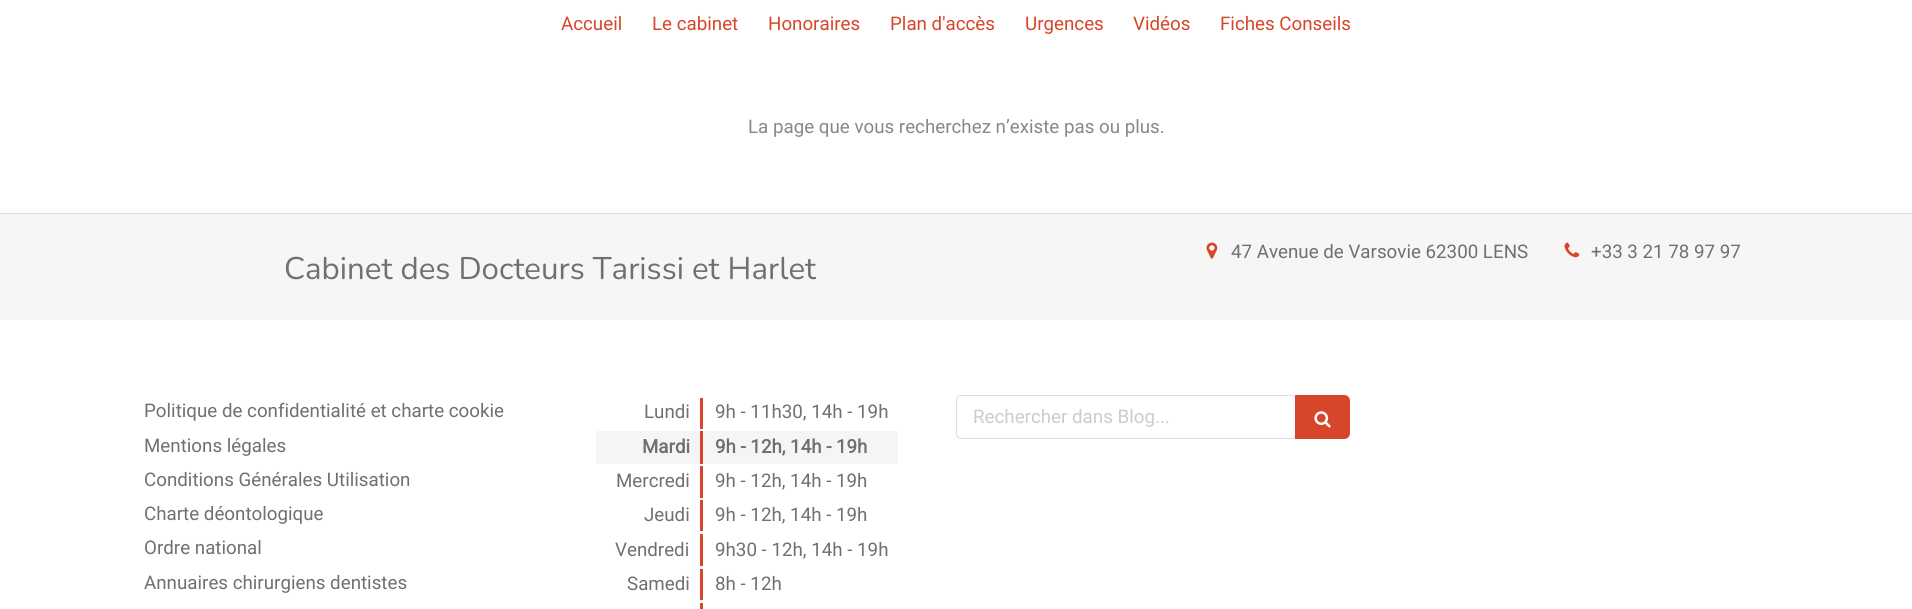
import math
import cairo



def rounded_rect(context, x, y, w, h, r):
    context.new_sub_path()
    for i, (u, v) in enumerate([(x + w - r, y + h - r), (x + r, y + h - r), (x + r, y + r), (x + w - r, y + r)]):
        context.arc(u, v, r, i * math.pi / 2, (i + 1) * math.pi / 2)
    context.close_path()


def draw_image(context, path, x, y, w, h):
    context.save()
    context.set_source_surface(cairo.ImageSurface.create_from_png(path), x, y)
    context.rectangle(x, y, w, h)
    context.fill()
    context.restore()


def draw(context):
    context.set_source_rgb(1, 1, 1)
    context.paint()
    context.set_source_rgb(221 / 255, 221 / 255, 221 / 255)
    context.rectangle(0, 213, 1912, 1)
    context.fill()
    context.set_source_rgb(246 / 255, 246 / 255, 246 / 255)
    context.rectangle(0, 214, 1912, 106)
    context.fill()
    draw_image(context, "images/1.png", 1206, 242, 12, 17)
    draw_image(context, "images/2.png", 1564, 242, 16, 16)
    context.set_source_rgb(215 / 255, 69 / 255, 42 / 255)
    context.rectangle(700, 398, 3, 31)
    context.fill()
    context.set_source_rgb(245 / 255, 245 / 255, 245 / 255)
    context.rectangle(596, 431, 302, 33)
    context.fill()
    context.set_source_rgb(215 / 255, 69 / 255, 42 / 255)
    context.rectangle(700, 431, 3, 33)
    context.fill()
    context.rectangle(700, 466, 3, 32)
    context.fill()
    context.rectangle(700, 500, 3, 31)
    context.fill()
    context.rectangle(700, 534, 3, 32)
    context.fill()
    context.rectangle(700, 569, 3, 31)
    context.fill()
    context.rectangle(700, 603, 3, 6)
    context.fill()
    rounded_rect(context, 956.5, 395.5, 339, 43, 4.5)
    context.set_source_rgb(221 / 255, 221 / 255, 221 / 255)
    context.set_line_width(1)
    context.stroke()
    context.set_source_rgb(215 / 255, 69 / 255, 42 / 255)
    context.new_path()
    context.move_to(1295, 395)
    context.line_to(1344, 395)
    context.curve_to(1347.5, 395, 1350, 397.5, 1350, 401)
    context.line_to(1350, 433)
    context.curve_to(1350, 436.5, 1347.5, 439, 1344, 439)
    context.line_to(1295, 439)
    context.close_path()
    context.fill()
    draw_image(context, "images/3.png", 1314, 411, 17, 17)
    context.select_font_face("Roboto")
    context.set_font_size(18.75)
    context.move_to(561, 30)
    context.show_text("Accueil")
    context.move_to(652, 30)
    context.show_text("Le cabinet")
    context.move_to(768, 30)
    context.show_text("Honoraires")
    context.move_to(890, 30)
    context.show_text("Plan d'accès")
    context.move_to(1025, 30)
    context.show_text("Urgences")
    context.move_to(1133, 30)
    context.show_text("Vidéos")
    context.move_to(1220, 30)
    context.show_text("Fiches Conseils")
    context.set_source_rgb(136 / 255, 136 / 255, 136 / 255)
    context.move_to(748, 133)
    context.show_text("La page que vous recherchez n’existe pas ou plus.")
    context.set_source_rgb(112 / 255, 112 / 255, 112 / 255)
    context.move_to(1231, 258)
    context.show_text("47 Avenue de Varsovie 62300 LENS")
    context.move_to(1591, 258)
    context.show_text("+33 3 21 78 97 97")
    context.select_font_face("Nunito")
    context.set_font_size(31.25)
    context.move_to(284, 279)
    context.show_text("Cabinet des Docteurs Tarissi et Harlet")
    context.select_font_face("Roboto")
    context.set_font_size(18.75)
    context.move_to(144, 417)
    context.show_text("Politique de confidentialité et charte cookie")
    context.move_to(144, 452)
    context.show_text("Mentions légales")
    context.move_to(144, 486)
    context.show_text("Conditions Générales Utilisation")
    context.move_to(144, 520)
    context.show_text("Charte déontologique")
    context.move_to(144, 554)
    context.show_text("Ordre national")
    context.move_to(144, 589)
    context.show_text("Annuaires chirurgiens dentistes")
    context.move_to(644, 418)
    context.show_text("Lundi")
    context.move_to(715, 418)
    context.show_text("9h - 11h30, 14h - 19h")
    context.select_font_face("Roboto", cairo.FontSlant.NORMAL, cairo.FontWeight.BOLD)
    context.move_to(642, 453)
    context.show_text("Mardi")
    context.move_to(715, 453)
    context.show_text("9h - 12h, 14h - 19h")
    context.select_font_face("Roboto")
    context.move_to(616, 487)
    context.show_text("Mercredi")
    context.move_to(715, 487)
    context.show_text("9h - 12h, 14h - 19h")
    context.move_to(644, 521)
    context.show_text("Jeudi")
    context.move_to(715, 521)
    context.show_text("9h - 12h, 14h - 19h")
    context.move_to(615, 556)
    context.show_text("Vendredi")
    context.move_to(715, 556)
    context.show_text("9h30 - 12h, 14h - 19h")
    context.move_to(627, 590)
    context.show_text("Samedi")
    context.move_to(715, 590)
    context.show_text("8h - 12h")
    context.set_source_rgb(204 / 255, 204 / 255, 204 / 255)
    context.move_to(973, 423)
    context.show_text("Rechercher dans Blog...")


surface = cairo.ImageSurface(cairo.Format.RGB24, 1912, 609)
context = cairo.Context(surface)
options = cairo.FontOptions()
options.set_hint_metrics(cairo.HintMetrics.OFF)
options.set_hint_style(cairo.HintStyle.NONE)
context.set_font_options(options)
context.set_miter_limit(4)
draw(context)
surface.write_to_png("out.png")
